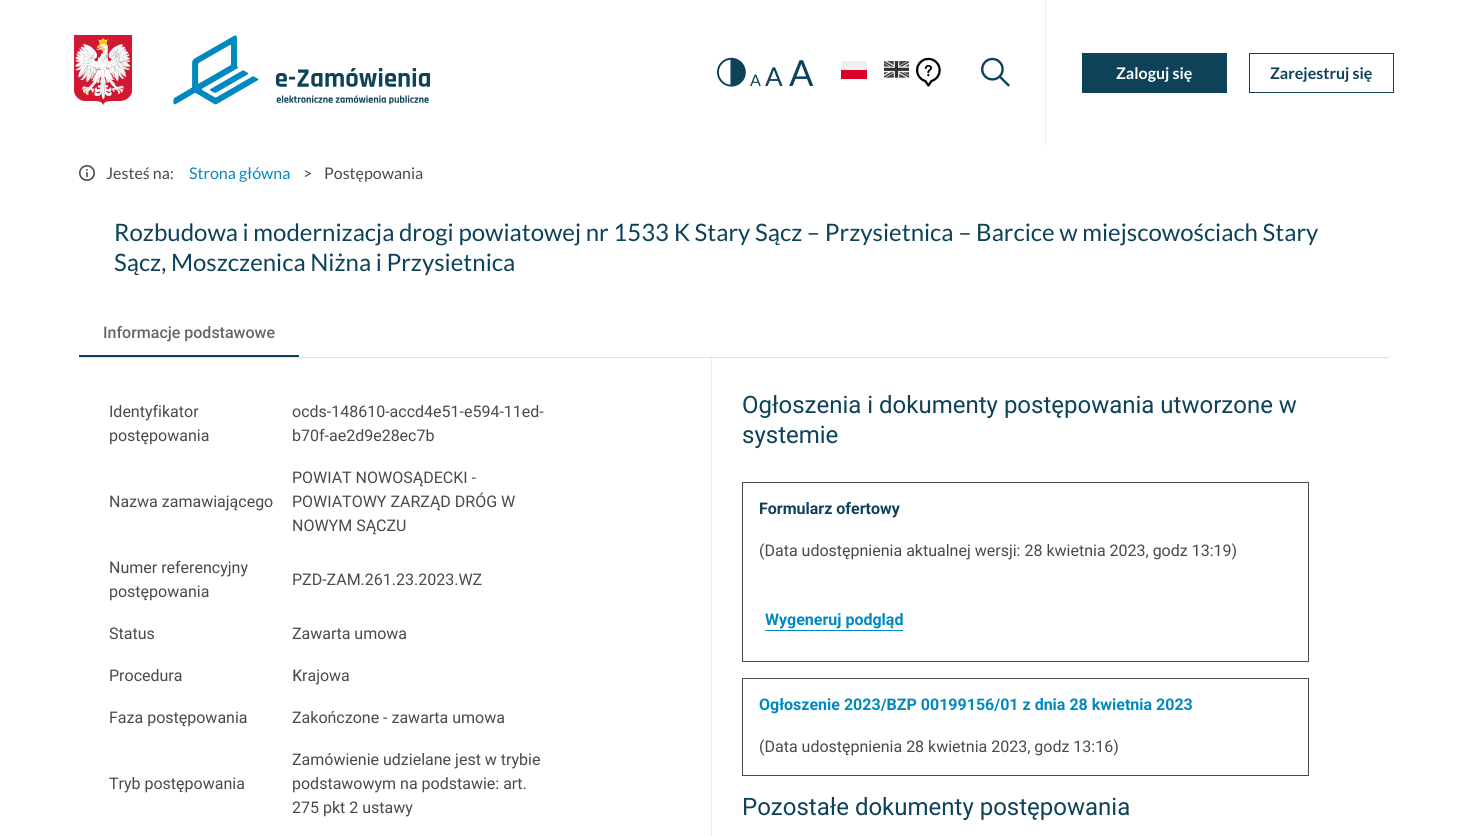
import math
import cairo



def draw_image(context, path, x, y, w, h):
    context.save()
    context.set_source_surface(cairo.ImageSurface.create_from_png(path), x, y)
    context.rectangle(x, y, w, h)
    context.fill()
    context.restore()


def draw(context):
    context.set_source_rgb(1, 1, 1)
    context.paint()
    draw_image(context, "images/1.png", 74, 35, 59, 70)
    draw_image(context, "images/2.png", 173, 35, 257, 70)
    draw_image(context, "images/3.png", 717, 57, 29, 30)
    context.set_source_rgb(240 / 255, 240 / 255, 240 / 255)
    context.rectangle(841, 61, 26, 9)
    context.fill()
    draw_image(context, "images/4.png", 884, 61, 25, 17)
    context.set_source_rgb(216 / 255, 0, 39 / 255)
    context.rectangle(841, 70, 26, 9)
    context.fill()
    draw_image(context, "images/5.png", 916, 57, 25, 30)
    draw_image(context, "images/6.png", 981, 57, 29, 30)
    context.set_source_rgb(236 / 255, 236 / 255, 236 / 255)
    context.rectangle(1045, 0, 1, 145)
    context.fill()
    context.set_source_rgb(13 / 255, 66 / 255, 89 / 255)
    context.rectangle(1082, 53, 145, 40)
    context.fill()
    context.rectangle(1249.5, 53.5, 144, 39)
    context.set_line_width(1)
    context.stroke()
    draw_image(context, "images/7.png", 79, 165, 16, 16)
    context.set_source_rgb(224 / 255, 224 / 255, 224 / 255)
    context.rectangle(79, 357, 1310, 1)
    context.fill()
    context.set_source_rgb(13 / 255, 66 / 255, 89 / 255)
    context.rectangle(79, 355, 220, 2)
    context.fill()
    context.set_source_rgb(236 / 255, 236 / 255, 236 / 255)
    context.rectangle(711, 358, 1, 478)
    context.fill()
    context.rectangle(742.5, 482.5, 566, 179)
    context.set_source_rgb(74 / 255, 74 / 255, 74 / 255)
    context.stroke()
    context.set_source_rgb(0, 137 / 255, 192 / 255)
    context.rectangle(765, 630, 138, 1)
    context.fill()
    context.rectangle(742.5, 678.5, 566, 97)
    context.set_source_rgb(74 / 255, 74 / 255, 74 / 255)
    context.stroke()
    context.select_font_face("Lato")
    context.set_font_size(16)
    context.set_source_rgb(13 / 255, 66 / 255, 89 / 255)
    context.move_to(750, 86)
    context.show_text("A")
    context.set_font_size(26)
    context.move_to(765, 86)
    context.show_text("A")
    context.set_font_size(36)
    context.move_to(789, 86)
    context.show_text("A")
    context.select_font_face("Lato", cairo.FontSlant.NORMAL, cairo.FontWeight.BOLD)
    context.set_font_size(16)
    context.set_source_rgb(1, 1, 1)
    context.move_to(1116, 79)
    context.show_text("Zaloguj się")
    context.set_source_rgb(13 / 255, 66 / 255, 89 / 255)
    context.move_to(1270, 79)
    context.show_text("Zarejestruj się")
    context.select_font_face("Lato")
    context.set_source_rgb(74 / 255, 74 / 255, 74 / 255)
    context.move_to(106, 179)
    context.show_text("Jesteś na:")
    context.set_source_rgb(0, 137 / 255, 192 / 255)
    context.move_to(189, 179)
    context.show_text("Strona główna")
    context.set_source_rgb(74 / 255, 74 / 255, 74 / 255)
    context.move_to(303, 179)
    context.show_text(">")
    context.move_to(324, 179)
    context.show_text("Postępowania")
    context.set_font_size(24)
    context.set_source_rgb(13 / 255, 66 / 255, 89 / 255)
    context.move_to(114, 241)
    context.show_text("Rozbudowa i modernizacja drogi powiatowej nr 1533 K Stary Sącz – Przysietnica – Barcice w miejscowościach Stary")
    context.move_to(114, 271)
    context.show_text("Sącz, Moszczenica Niżna i Przysietnica")
    context.select_font_face("Roboto Medium")
    context.set_font_size(16)
    context.set_source_rgb(102 / 255, 102 / 255, 102 / 255)
    context.move_to(103, 338)
    context.show_text("Informacje podstawowe")
    context.select_font_face("Roboto")
    context.set_source_rgb(74 / 255, 74 / 255, 74 / 255)
    context.move_to(109, 417)
    context.show_text("Identyfikator")
    context.move_to(109, 441)
    context.show_text("postępowania")
    context.move_to(292, 417)
    context.show_text("ocds-148610-accd4e51-e594-11ed-")
    context.move_to(292, 441)
    context.show_text("b70f-ae2d9e28ec7b")
    context.move_to(109, 507)
    context.show_text("Nazwa zamawiającego")
    context.move_to(292, 483)
    context.show_text("POWIAT NOWOSĄDECKI -")
    context.move_to(292, 507)
    context.show_text("POWIATOWY ZARZĄD DRÓG W")
    context.move_to(292, 531)
    context.show_text("NOWYM SĄCZU")
    context.move_to(109, 573)
    context.show_text("Numer referencyjny")
    context.move_to(109, 597)
    context.show_text("postępowania")
    context.move_to(292, 585)
    context.show_text("PZD-ZAM.261.23.2023.WZ")
    context.move_to(109, 639)
    context.show_text("Status")
    context.move_to(292, 639)
    context.show_text("Zawarta umowa")
    context.move_to(109, 681)
    context.show_text("Procedura")
    context.select_font_face("Noto Sans Medium")
    context.move_to(292, 681)
    context.show_text("K")
    context.select_font_face("Roboto")
    context.move_to(302, 681)
    context.show_text("rajowa")
    context.move_to(109, 723)
    context.show_text("Faza postępowania")
    context.move_to(292, 723)
    context.show_text("Zakończone - zawarta umowa")
    context.move_to(109, 789)
    context.show_text("Tryb postępowania")
    context.move_to(292, 765)
    context.show_text("Zamówienie udzielane jest w trybie")
    context.move_to(292, 789)
    context.show_text("podstawowym na podstawie: art.")
    context.move_to(292, 813)
    context.show_text("275 pkt 2 ustawy")
    context.set_font_size(24)
    context.set_source_rgb(13 / 255, 66 / 255, 89 / 255)
    context.move_to(742, 413)
    context.show_text("Ogłoszenia i dokumenty postępowania utworzone w")
    context.move_to(742, 443)
    context.show_text("systemie")
    context.select_font_face("Roboto", cairo.FontSlant.NORMAL, cairo.FontWeight.BOLD)
    context.set_font_size(16)
    context.move_to(759, 514)
    context.show_text("Formularz ofertowy")
    context.select_font_face("Roboto")
    context.set_source_rgb(74 / 255, 74 / 255, 74 / 255)
    context.move_to(759, 556)
    context.show_text("(Data udostępnienia aktualnej wersji: 28 kwietnia 2023, godz 13:19)")
    context.select_font_face("Roboto", cairo.FontSlant.NORMAL, cairo.FontWeight.BOLD)
    context.set_source_rgb(0, 137 / 255, 192 / 255)
    context.move_to(765, 625)
    context.show_text("Wygeneruj podgląd")
    context.move_to(759, 710)
    context.show_text("Ogłoszenie 2023/BZP 00199156/01 z dnia 28 kwietnia 2023")
    context.select_font_face("Roboto")
    context.set_source_rgb(74 / 255, 74 / 255, 74 / 255)
    context.move_to(759, 752)
    context.show_text("(Data udostępnienia 28 kwietnia 2023, godz 13:16)")
    context.set_font_size(24)
    context.set_source_rgb(13 / 255, 66 / 255, 89 / 255)
    context.move_to(742, 815)
    context.show_text("Pozostałe dokumenty postępowania")


surface = cairo.ImageSurface(cairo.Format.RGB24, 1467, 836)
context = cairo.Context(surface)
options = cairo.FontOptions()
options.set_hint_metrics(cairo.HintMetrics.OFF)
options.set_hint_style(cairo.HintStyle.NONE)
context.set_font_options(options)
context.set_miter_limit(4)
draw(context)
surface.write_to_png("out.png")
